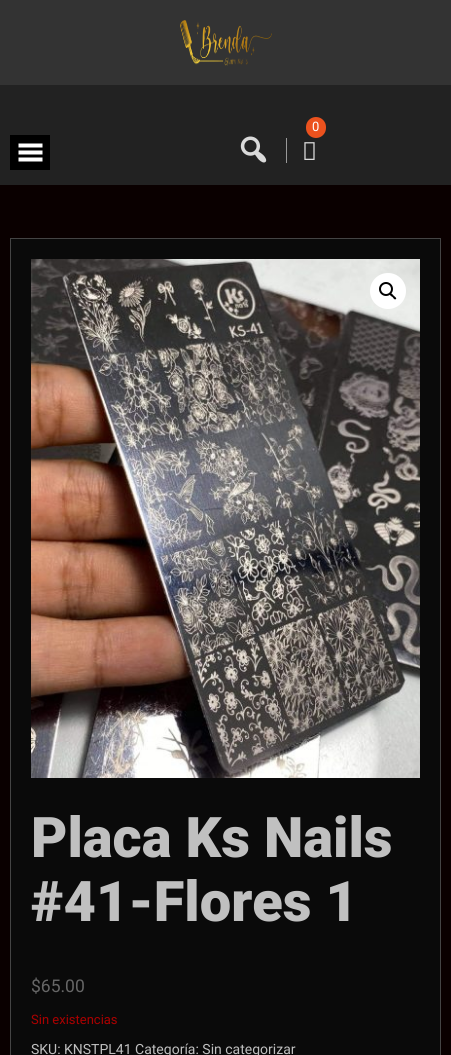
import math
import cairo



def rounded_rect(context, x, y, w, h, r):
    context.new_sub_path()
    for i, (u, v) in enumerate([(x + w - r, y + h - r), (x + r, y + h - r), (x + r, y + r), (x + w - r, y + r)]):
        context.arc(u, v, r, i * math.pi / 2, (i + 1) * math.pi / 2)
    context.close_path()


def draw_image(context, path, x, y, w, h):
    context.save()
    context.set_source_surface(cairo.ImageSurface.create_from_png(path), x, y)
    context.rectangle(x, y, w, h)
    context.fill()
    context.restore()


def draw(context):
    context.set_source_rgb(10 / 255, 0, 0)
    context.paint()
    context.set_source_rgb(51 / 255, 51 / 255, 51 / 255)
    context.rectangle(0, 0, 451, 85)
    context.fill()
    draw_image(context, "images/1.png", 180, 20, 92, 46)
    context.set_source_rgb(34 / 255, 34 / 255, 34 / 255)
    context.rectangle(0, 85, 451, 100)
    context.fill()
    context.set_source_rgb(153 / 255, 153 / 255, 153 / 255)
    context.rectangle(286, 138, 1, 25)
    context.fill()
    context.set_source_rgb(236 / 255, 82 / 255, 30 / 255)
    rounded_rect(context, 306, 117, 20, 21, 10)
    context.fill()
    draw_image(context, "images/2.png", 304, 142, 11, 18)
    draw_image(context, "images/3.png", 240, 136, 27, 27)
    draw_image(context, "images/4.png", 10, 135, 40, 35)
    context.set_source_rgb(10 / 255, 10 / 255, 10 / 255)
    context.rectangle(10.5, 238.5, 430, 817)
    context.fill_preserve()
    context.set_source_rgb(68 / 255, 68 / 255, 68 / 255)
    context.set_line_width(1)
    context.stroke()
    draw_image(context, "images/5.png", 31, 259, 389, 519)
    context.set_source_rgb(1, 1, 1)
    context.arc(388, 291, 18, 0, 2 * math.pi)
    context.fill()
    context.arc(386, 289, 6, 0, 2 * math.pi)
    context.set_source_rgb(0, 0, 0)
    context.set_line_width(2)
    context.stroke()
    context.new_path()
    context.move_to(390, 293.5)
    context.curve_to(391.5, 292.5, 393, 295, 393.5, 295.5)
    context.curve_to(394.5, 296.5, 397, 298, 396, 299)
    context.curve_to(394.5, 300.5, 393, 297.5, 392.5, 297)
    context.curve_to(391.5, 296.5, 389, 295, 390, 293.5)
    context.close_path()
    context.fill()
    context.select_font_face("Roboto")
    context.set_font_size(13)
    context.set_source_rgb(1, 1, 1)
    context.move_to(312, 131)
    context.show_text("0")
    context.select_font_face("Roboto Black")
    context.set_font_size(56)
    context.set_source_rgb(192 / 255, 192 / 255, 192 / 255)
    context.move_to(31, 857)
    context.show_text("Placa Ks Nails")
    context.move_to(31, 921)
    context.show_text("#41-Flores 1")
    context.select_font_face("Roboto")
    context.set_font_size(17.5)
    context.set_source_rgb(102 / 255, 102 / 255, 102 / 255)
    context.move_to(31, 992)
    context.show_text("$65.00")
    context.set_font_size(13)
    context.set_source_rgb(170 / 255, 0, 0)
    context.move_to(31, 1024)
    context.show_text("Sin existencias")
    context.set_font_size(14)
    context.set_source_rgb(192 / 255, 192 / 255, 192 / 255)
    context.move_to(31, 1054)
    context.show_text("SKU: KNSTPL41 Categoría: Sin categorizar")


surface = cairo.ImageSurface(cairo.Format.RGB24, 451, 1055)
context = cairo.Context(surface)
options = cairo.FontOptions()
options.set_hint_metrics(cairo.HintMetrics.OFF)
options.set_hint_style(cairo.HintStyle.NONE)
context.set_font_options(options)
context.set_miter_limit(4)
draw(context)
surface.write_to_png("out.png")
